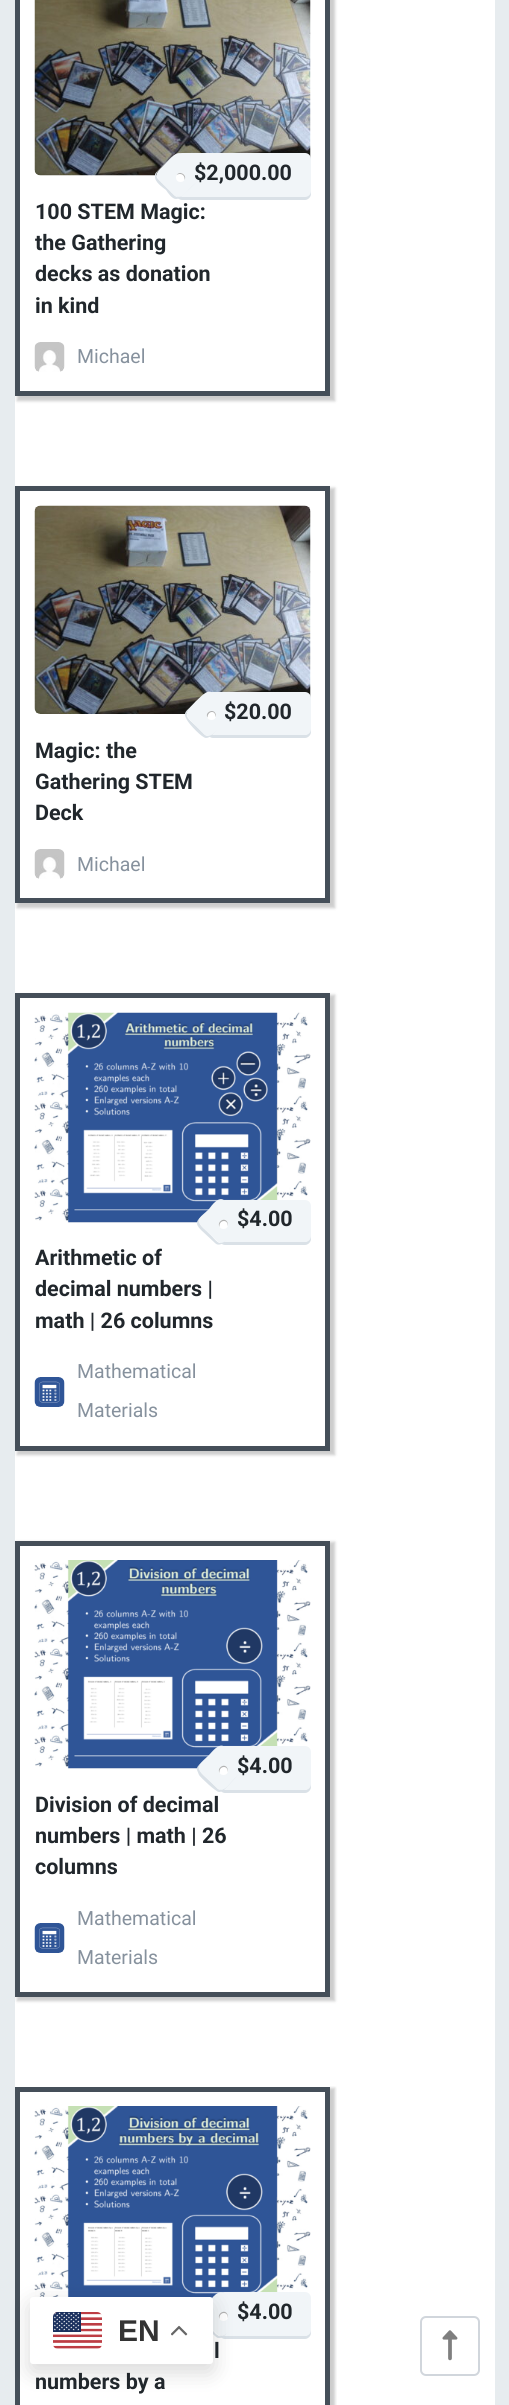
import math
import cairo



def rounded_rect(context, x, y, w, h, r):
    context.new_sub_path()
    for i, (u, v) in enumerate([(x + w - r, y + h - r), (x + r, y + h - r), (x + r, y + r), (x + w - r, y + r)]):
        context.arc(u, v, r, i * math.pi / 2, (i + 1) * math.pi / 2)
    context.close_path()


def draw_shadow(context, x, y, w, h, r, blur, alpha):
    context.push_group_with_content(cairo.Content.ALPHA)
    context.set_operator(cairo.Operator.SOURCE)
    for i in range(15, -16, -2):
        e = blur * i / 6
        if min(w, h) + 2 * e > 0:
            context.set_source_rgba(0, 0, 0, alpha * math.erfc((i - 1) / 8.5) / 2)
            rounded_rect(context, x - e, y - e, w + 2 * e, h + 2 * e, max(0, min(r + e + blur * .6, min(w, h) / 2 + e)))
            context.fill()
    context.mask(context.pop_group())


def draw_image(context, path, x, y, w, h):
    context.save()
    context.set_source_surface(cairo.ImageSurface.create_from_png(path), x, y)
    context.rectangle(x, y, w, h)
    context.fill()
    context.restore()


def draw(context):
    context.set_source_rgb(231 / 255, 236 / 255, 239 / 255)
    context.paint()
    context.set_source_rgb(1, 1, 1)
    context.rectangle(15, 0, 480, 2405)
    context.fill()
    context.save()
    context.set_fill_rule(cairo.FillRule.EVEN_ODD)
    context.new_path()
    context.move_to(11, 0)
    context.line_to(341, 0)
    context.line_to(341, 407)
    context.line_to(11, 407)
    context.close_path()
    context.move_to(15, -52)
    context.line_to(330, -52)
    context.line_to(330, 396)
    context.line_to(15, 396)
    context.close_path()
    context.clip()
    context.set_source_rgb(0, 0, 0)
    draw_shadow(context, 17, -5, 318, 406, 0, 1.5, 0.2)
    context.restore()
    context.rectangle(17.5, -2.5, 310, 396)
    context.set_source_rgb(69 / 255, 79 / 255, 89 / 255)
    context.set_line_width(5)
    context.stroke()
    draw_image(context, "images/1.png", 34, 0, 277, 176)
    context.set_source_rgb(218 / 255, 225 / 255, 231 / 255)
    context.new_path()
    context.move_to(176, 193)
    context.line_to(176, 194)
    context.curve_to(176, 197, 179, 200, 182, 200)
    context.line_to(305, 200)
    context.curve_to(308, 200, 311, 197, 311, 194)
    context.line_to(311, 162)
    context.line_to(310, 160)
    context.line_to(310, 190)
    context.curve_to(310, 194, 308, 196, 304, 196)
    context.line_to(182, 196)
    context.curve_to(179, 196, 177, 195, 176, 193)
    context.close_path()
    context.fill()
    context.set_source_rgb(241 / 255, 245 / 255, 248 / 255)
    rounded_rect(context, 176, 153, 135, 44, 6)
    context.fill()
    context.set_source_rgb(218 / 255, 225 / 255, 231 / 255)
    context.new_path()
    context.move_to(172, 157)
    context.curve_to(170, 158, 156, 172, 155, 174)
    context.line_to(155, 177)
    context.curve_to(155, 182, 162, 187, 166, 190)
    context.curve_to(168, 193, 172, 199, 176, 199)
    context.curve_to(178, 199, 180, 198, 182, 196)
    context.curve_to(183, 195, 196, 183, 197, 181)
    context.line_to(183, 195)
    context.curve_to(180, 198, 177, 198, 174, 195)
    context.line_to(158, 179)
    context.curve_to(156, 177, 156, 173, 158, 171)
    context.close_path()
    context.fill()
    context.set_source_rgb(241 / 255, 245 / 255, 248 / 255)
    context.new_path()
    context.move_to(183, 155)
    context.curve_to(186, 158, 199, 170, 200, 173)
    context.curve_to(202, 179, 194, 184, 191, 187)
    context.curve_to(187, 191, 180, 201, 174, 195)
    context.line_to(161, 182)
    context.curve_to(152, 173, 159, 171, 166, 163)
    context.curve_to(170, 159, 177, 149, 183, 155)
    context.close_path()
    context.fill()
    context.set_source_rgb(1, 1, 1)
    context.arc(180.5, 177.5, 4.5, 0, 2 * math.pi)
    context.fill()
    context.set_source_rgba(0, 0, 0, 0.3)
    context.new_path()
    context.move_to(180, 174)
    context.curve_to(183.5, 174, 185, 177.5, 184.5, 180)
    context.curve_to(187.5, 174.5, 179, 170, 176.5, 175.5)
    context.curve_to(177, 174.5, 178.5, 174, 180, 174)
    context.close_path()
    context.fill()
    draw_image(context, "images/2.png", 34, 342, 31, 30)
    context.save()
    context.set_fill_rule(cairo.FillRule.EVEN_ODD)
    context.new_path()
    context.move_to(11, 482)
    context.line_to(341, 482)
    context.line_to(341, 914)
    context.line_to(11, 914)
    context.close_path()
    context.move_to(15, 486)
    context.line_to(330, 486)
    context.line_to(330, 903)
    context.line_to(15, 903)
    context.close_path()
    context.clip()
    context.set_source_rgb(0, 0, 0)
    draw_shadow(context, 17, 488, 318, 420, 0, 1.5, 0.2)
    context.restore()
    context.rectangle(17.5, 488.5, 310, 412)
    context.set_source_rgb(69 / 255, 79 / 255, 89 / 255)
    context.stroke()
    draw_image(context, "images/3.png", 34, 505, 277, 209)
    context.set_source_rgb(218 / 255, 225 / 255, 231 / 255)
    context.new_path()
    context.move_to(207, 729)
    context.line_to(207, 732)
    context.curve_to(207, 735, 210, 738, 213, 738)
    context.line_to(305, 738)
    context.curve_to(308, 738, 311, 735, 311, 732)
    context.line_to(311, 701)
    context.line_to(310, 699)
    context.line_to(310, 729)
    context.curve_to(310, 732, 308, 735, 304, 735)
    context.line_to(213, 735)
    context.curve_to(210, 735, 207, 732, 207, 729)
    context.close_path()
    context.fill()
    context.set_source_rgb(241 / 255, 245 / 255, 248 / 255)
    rounded_rect(context, 207, 692, 104, 43, 6)
    context.fill()
    context.set_source_rgb(218 / 255, 225 / 255, 231 / 255)
    context.set_fill_rule(cairo.FillRule.EVEN_ODD)
    context.new_path()
    context.move_to(227, 720)
    context.line_to(218, 729)
    context.curve_to(214, 732, 210, 738, 205, 735)
    context.line_to(196, 726)
    context.curve_to(189, 719, 182, 716, 191, 707)
    context.curve_to(188, 709, 184, 712, 185, 716)
    context.line_to(187, 720)
    context.curve_to(189, 724, 202, 738, 206, 738)
    context.curve_to(208, 738, 210, 737, 212, 735)
    context.curve_to(214, 733, 225, 722, 227, 720)
    context.close_path()
    context.move_to(201, 697)
    context.line_to(197, 701)
    context.close_path()
    context.fill()
    context.set_source_rgb(241 / 255, 245 / 255, 248 / 255)
    context.set_fill_rule(cairo.FillRule.WINDING)
    context.new_path()
    context.move_to(213, 693)
    context.curve_to(216, 697, 229, 708, 230, 711)
    context.curve_to(232, 717, 224, 723, 221, 726)
    context.curve_to(217, 730, 210, 740, 204, 734)
    context.line_to(191, 721)
    context.curve_to(182, 712, 189, 709, 196, 701)
    context.curve_to(200, 698, 207, 688, 213, 693)
    context.close_path()
    context.fill()
    context.set_source_rgb(1, 1, 1)
    context.arc(211.5, 715.5, 4.5, 0, 2 * math.pi)
    context.fill()
    context.set_source_rgba(0, 0, 0, 0.3)
    context.new_path()
    context.move_to(212, 712)
    context.curve_to(214.5, 712, 215.5, 714.5, 215.5, 717)
    context.curve_to(216, 716, 216, 715, 215.5, 713.5)
    context.curve_to(213, 708, 204.5, 712.5, 207.5, 717.5)
    context.curve_to(207.5, 715, 209, 712, 212, 712)
    context.close_path()
    context.fill()
    draw_image(context, "images/4.png", 34, 849, 31, 30)
    context.save()
    context.set_fill_rule(cairo.FillRule.EVEN_ODD)
    context.new_path()
    context.move_to(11, 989)
    context.line_to(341, 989)
    context.line_to(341, 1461)
    context.line_to(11, 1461)
    context.close_path()
    context.move_to(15, 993)
    context.line_to(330, 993)
    context.line_to(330, 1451)
    context.line_to(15, 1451)
    context.close_path()
    context.clip()
    context.set_source_rgb(0, 0, 0)
    draw_shadow(context, 17, 995, 318, 460, 0, 1.5, 0.2)
    context.restore()
    context.rectangle(17.5, 995.5, 310, 453)
    context.set_source_rgb(69 / 255, 79 / 255, 89 / 255)
    context.stroke()
    draw_image(context, "images/5.png", 34, 1012, 277, 211)
    context.set_source_rgb(218 / 255, 225 / 255, 231 / 255)
    context.new_path()
    context.move_to(219, 1236)
    context.line_to(219, 1239)
    context.curve_to(219, 1242, 222, 1245, 225, 1245)
    context.line_to(305, 1245)
    context.curve_to(308, 1245, 311, 1242, 311, 1239)
    context.line_to(311, 1209)
    context.line_to(310, 1207)
    context.line_to(310, 1236)
    context.curve_to(310, 1239, 308, 1242, 304, 1242)
    context.line_to(225, 1242)
    context.curve_to(222, 1242, 219, 1239, 219, 1236)
    context.close_path()
    context.fill()
    context.set_source_rgb(241 / 255, 245 / 255, 248 / 255)
    rounded_rect(context, 219, 1200, 92, 42, 6)
    context.fill()
    context.set_source_rgb(218 / 255, 225 / 255, 231 / 255)
    context.set_fill_rule(cairo.FillRule.EVEN_ODD)
    context.new_path()
    context.move_to(239, 1227)
    context.line_to(234, 1232)
    context.close_path()
    context.move_to(227, 1239)
    context.curve_to(219, 1248, 216, 1240, 209, 1233)
    context.curve_to(202, 1226, 195, 1223, 203, 1215)
    context.curve_to(197, 1220, 194, 1223, 201, 1230)
    context.line_to(215, 1243)
    context.curve_to(219, 1247, 224, 1243, 227, 1239)
    context.close_path()
    context.move_to(215, 1203)
    context.line_to(209, 1209)
    context.close_path()
    context.fill()
    context.set_source_rgb(241 / 255, 245 / 255, 248 / 255)
    context.set_fill_rule(cairo.FillRule.WINDING)
    context.new_path()
    context.move_to(225, 1201)
    context.curve_to(228, 1204, 241, 1216, 242, 1219)
    context.curve_to(245, 1225, 236, 1230, 233, 1233)
    context.curve_to(229, 1237, 223, 1247, 217, 1241)
    context.line_to(203, 1228)
    context.curve_to(194, 1219, 201, 1217, 209, 1209)
    context.curve_to(212, 1205, 219, 1195, 225, 1201)
    context.close_path()
    context.fill()
    context.set_source_rgb(1, 1, 1)
    context.arc(223.5, 1224.5, 4.5, 0, 2 * math.pi)
    context.fill()
    context.set_source_rgba(0, 0, 0, 0.3)
    context.new_path()
    context.move_to(224, 1221)
    context.curve_to(226.5, 1221, 228, 1223.5, 227.5, 1226)
    context.curve_to(228, 1225, 228, 1224, 227.5, 1222.5)
    context.curve_to(225, 1216.5, 216.5, 1221.5, 219.5, 1227)
    context.curve_to(219, 1224.5, 220.5, 1221, 224, 1221)
    context.close_path()
    context.fill()
    draw_image(context, "images/6.png", 34, 1377, 31, 30)
    context.save()
    context.set_fill_rule(cairo.FillRule.EVEN_ODD)
    context.new_path()
    context.move_to(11, 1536)
    context.line_to(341, 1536)
    context.line_to(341, 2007)
    context.line_to(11, 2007)
    context.close_path()
    context.move_to(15, 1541)
    context.line_to(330, 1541)
    context.line_to(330, 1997)
    context.line_to(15, 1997)
    context.close_path()
    context.clip()
    context.set_source_rgb(0, 0, 0)
    draw_shadow(context, 17, 1542, 318, 459, 0, 1.5, 0.2)
    context.restore()
    context.rectangle(17.5, 1543.5, 310, 451)
    context.set_source_rgb(69 / 255, 79 / 255, 89 / 255)
    context.stroke()
    draw_image(context, "images/7.png", 34, 1560, 277, 209)
    context.set_source_rgb(218 / 255, 225 / 255, 231 / 255)
    context.new_path()
    context.move_to(219, 1784)
    context.line_to(219, 1787)
    context.curve_to(219, 1790, 222, 1793, 225, 1793)
    context.line_to(305, 1793)
    context.curve_to(308, 1793, 311, 1790, 311, 1787)
    context.line_to(311, 1755)
    context.line_to(310, 1753)
    context.line_to(310, 1784)
    context.curve_to(310, 1787, 308, 1790, 304, 1790)
    context.line_to(225, 1790)
    context.curve_to(222, 1790, 219, 1787, 219, 1784)
    context.close_path()
    context.fill()
    context.set_source_rgb(241 / 255, 245 / 255, 248 / 255)
    rounded_rect(context, 219, 1746, 92, 44, 6)
    context.fill()
    context.set_source_rgb(218 / 255, 225 / 255, 231 / 255)
    context.set_fill_rule(cairo.FillRule.EVEN_ODD)
    context.new_path()
    context.move_to(239, 1774)
    context.line_to(230, 1783)
    context.curve_to(227, 1786, 223, 1792, 218, 1789)
    context.line_to(209, 1780)
    context.curve_to(203, 1774, 195, 1770, 202, 1762)
    context.curve_to(200, 1764, 196, 1767, 197, 1770)
    context.line_to(199, 1775)
    context.curve_to(201, 1778, 216, 1792, 219, 1792)
    context.curve_to(221, 1792, 222, 1791, 224, 1790)
    context.close_path()
    context.move_to(214, 1750)
    context.line_to(210, 1754)
    context.close_path()
    context.fill()
    context.set_source_rgb(241 / 255, 245 / 255, 248 / 255)
    context.set_fill_rule(cairo.FillRule.WINDING)
    context.new_path()
    context.move_to(225, 1747)
    context.curve_to(228, 1751, 241, 1762, 242, 1765)
    context.curve_to(245, 1771, 236, 1776, 233, 1780)
    context.curve_to(229, 1784, 223, 1794, 217, 1788)
    context.line_to(203, 1775)
    context.curve_to(194, 1766, 201, 1763, 209, 1755)
    context.curve_to(212, 1752, 219, 1742, 225, 1747)
    context.close_path()
    context.fill()
    context.set_source_rgb(1, 1, 1)
    context.arc(223.5, 1770.5, 4.5, 0, 2 * math.pi)
    context.fill()
    context.set_source_rgba(0, 0, 0, 0.3)
    context.new_path()
    context.move_to(224, 1767)
    context.curve_to(226.5, 1767, 228, 1769.5, 227.5, 1772)
    context.curve_to(228, 1771, 228, 1770, 227.5, 1768.5)
    context.curve_to(225, 1762.5, 216.5, 1767.5, 219.5, 1773)
    context.curve_to(219, 1770.5, 220.5, 1767, 224, 1767)
    context.close_path()
    context.fill()
    draw_image(context, "images/6.png", 34, 1923, 31, 30)
    context.save()
    context.rectangle(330, 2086, 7, 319)
    context.clip()
    context.set_source_rgb(0, 0, 0)
    draw_shadow(context, 17, 2088, 318, 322, 0, 1.5, 0.2)
    context.restore()
    context.rectangle(17.5, 2089.5, 310, 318)
    context.set_source_rgb(69 / 255, 79 / 255, 89 / 255)
    context.stroke()
    draw_image(context, "images/8.png", 34, 2106, 277, 193)
    context.set_source_rgb(218 / 255, 225 / 255, 231 / 255)
    context.new_path()
    context.move_to(219, 2330)
    context.line_to(219, 2333)
    context.curve_to(219, 2336, 222, 2339, 225, 2339)
    context.line_to(305, 2339)
    context.curve_to(308, 2339, 311, 2336, 311, 2333)
    context.line_to(311, 2301)
    context.line_to(310, 2299)
    context.line_to(310, 2330)
    context.curve_to(310, 2333, 308, 2336, 304, 2336)
    context.line_to(225, 2336)
    context.curve_to(222, 2336, 219, 2333, 219, 2330)
    context.close_path()
    context.fill()
    context.set_source_rgb(241 / 255, 245 / 255, 248 / 255)
    rounded_rect(context, 219, 2292, 92, 44, 6)
    context.fill()
    context.set_source_rgb(218 / 255, 225 / 255, 231 / 255)
    context.set_fill_rule(cairo.FillRule.EVEN_ODD)
    context.new_path()
    context.move_to(239, 2320)
    context.line_to(234, 2326)
    context.close_path()
    context.move_to(228, 2332)
    context.curve_to(219, 2341, 216, 2334, 209, 2326)
    context.curve_to(203, 2320, 195, 2316, 202, 2308)
    context.curve_to(197, 2313, 194, 2316, 201, 2323)
    context.line_to(215, 2336)
    context.curve_to(220, 2341, 224, 2336, 228, 2332)
    context.close_path()
    context.move_to(208, 2303)
    context.curve_to(210, 2300, 213, 2297, 215, 2295)
    context.close_path()
    context.fill()
    context.set_source_rgb(241 / 255, 245 / 255, 248 / 255)
    context.set_fill_rule(cairo.FillRule.WINDING)
    context.new_path()
    context.move_to(225, 2294)
    context.curve_to(228, 2297, 241, 2309, 242, 2312)
    context.curve_to(245, 2317, 236, 2323, 233, 2326)
    context.curve_to(229, 2330, 223, 2340, 217, 2334)
    context.line_to(203, 2321)
    context.curve_to(194, 2312, 201, 2310, 209, 2302)
    context.curve_to(212, 2298, 219, 2288, 225, 2294)
    context.close_path()
    context.fill()
    context.set_source_rgb(1, 1, 1)
    context.arc(223.5, 2316.5, 4.5, 0, 2 * math.pi)
    context.fill()
    context.set_source_rgba(0, 0, 0, 0.3)
    context.new_path()
    context.move_to(224, 2313)
    context.curve_to(226.5, 2313, 228, 2315.5, 227.5, 2318)
    context.curve_to(228, 2317, 228, 2316, 227.5, 2314.5)
    context.curve_to(225, 2308.5, 216.5, 2313.5, 219.5, 2319)
    context.curve_to(219, 2316.5, 220.5, 2313, 224, 2313)
    context.close_path()
    context.fill()
    rounded_rect(context, 421, 2317, 58, 58, 5)
    context.set_source_rgb(209 / 255, 214 / 255, 220 / 255)
    context.set_line_width(2)
    context.stroke()
    draw_image(context, "images/9.png", 442, 2330, 16, 31)
    context.set_source_rgb(0, 0, 0)
    draw_shadow(context, 30, 2304, 183, 68, 3, 11, 0.15)
    context.set_source_rgb(1, 1, 1)
    rounded_rect(context, 30, 2297, 183, 67, 3)
    context.fill()
    draw_image(context, "images/10.png", 53, 2312, 49, 37)
    draw_image(context, "images/11.png", 171, 2325, 17, 11)
    context.select_font_face("Roboto", cairo.FontSlant.NORMAL, cairo.FontWeight.BOLD)
    context.set_font_size(21.5)
    context.set_source_rgb(33 / 255, 39 / 255, 44 / 255)
    context.move_to(194, 180)
    context.show_text("$2,000.00")
    context.move_to(35, 219)
    context.show_text("100 STEM Magic:")
    context.move_to(35, 250)
    context.show_text("the Gathering")
    context.move_to(35, 281)
    context.show_text("decks as donation")
    context.move_to(35, 313)
    context.show_text("in kind")
    context.select_font_face("Roboto")
    context.set_font_size(19.5)
    context.set_source_rgb(134 / 255, 145 / 255, 157 / 255)
    context.move_to(77, 363)
    context.show_text("Michael")
    context.select_font_face("Roboto", cairo.FontSlant.NORMAL, cairo.FontWeight.BOLD)
    context.set_font_size(21.5)
    context.set_source_rgb(33 / 255, 39 / 255, 44 / 255)
    context.move_to(224, 719)
    context.show_text("$20.00")
    context.move_to(35, 758)
    context.show_text("Magic: the")
    context.move_to(35, 789)
    context.show_text("Gathering STEM")
    context.move_to(35, 820)
    context.show_text("Deck")
    context.select_font_face("Roboto")
    context.set_font_size(19.5)
    context.set_source_rgb(134 / 255, 145 / 255, 157 / 255)
    context.move_to(77, 871)
    context.show_text("Michael")
    context.select_font_face("Roboto", cairo.FontSlant.NORMAL, cairo.FontWeight.BOLD)
    context.set_font_size(21.5)
    context.set_source_rgb(33 / 255, 39 / 255, 44 / 255)
    context.move_to(237, 1226)
    context.show_text("$4.00")
    context.move_to(35, 1265)
    context.show_text("Arithmetic of")
    context.move_to(35, 1296)
    context.show_text("decimal numbers |")
    context.move_to(35, 1328)
    context.show_text("math | 26 columns")
    context.select_font_face("Roboto")
    context.set_font_size(19.5)
    context.set_source_rgb(134 / 255, 145 / 255, 157 / 255)
    context.move_to(77, 1378)
    context.show_text("Mathematical")
    context.move_to(77, 1417)
    context.show_text("Materials")
    context.select_font_face("Roboto", cairo.FontSlant.NORMAL, cairo.FontWeight.BOLD)
    context.set_font_size(21.5)
    context.set_source_rgb(33 / 255, 39 / 255, 44 / 255)
    context.move_to(237, 1773)
    context.show_text("$4.00")
    context.move_to(35, 1812)
    context.show_text("Division of decimal")
    context.move_to(35, 1843)
    context.show_text("numbers | math | 26")
    context.move_to(35, 1874)
    context.show_text("columns")
    context.select_font_face("Roboto")
    context.set_font_size(19.5)
    context.set_source_rgb(134 / 255, 145 / 255, 157 / 255)
    context.move_to(77, 1925)
    context.show_text("Mathematical")
    context.move_to(77, 1964)
    context.show_text("Materials")
    context.select_font_face("Roboto", cairo.FontSlant.NORMAL, cairo.FontWeight.BOLD)
    context.set_font_size(21.5)
    context.set_source_rgb(33 / 255, 39 / 255, 44 / 255)
    context.move_to(237, 2319)
    context.show_text("$4.00")
    context.move_to(214, 2358)
    context.show_text("l")
    context.move_to(35, 2389)
    context.show_text("numbers by a")
    context.select_font_face("Liberation Sans", cairo.FontSlant.NORMAL, cairo.FontWeight.BOLD)
    context.set_font_size(30)
    context.set_source_rgb(51 / 255, 51 / 255, 51 / 255)
    context.move_to(118, 2341)
    context.show_text("EN")


surface = cairo.ImageSurface(cairo.Format.RGB24, 509, 2405)
context = cairo.Context(surface)
options = cairo.FontOptions()
options.set_hint_metrics(cairo.HintMetrics.OFF)
options.set_hint_style(cairo.HintStyle.NONE)
context.set_font_options(options)
context.set_miter_limit(4)
draw(context)
surface.write_to_png("out.png")
